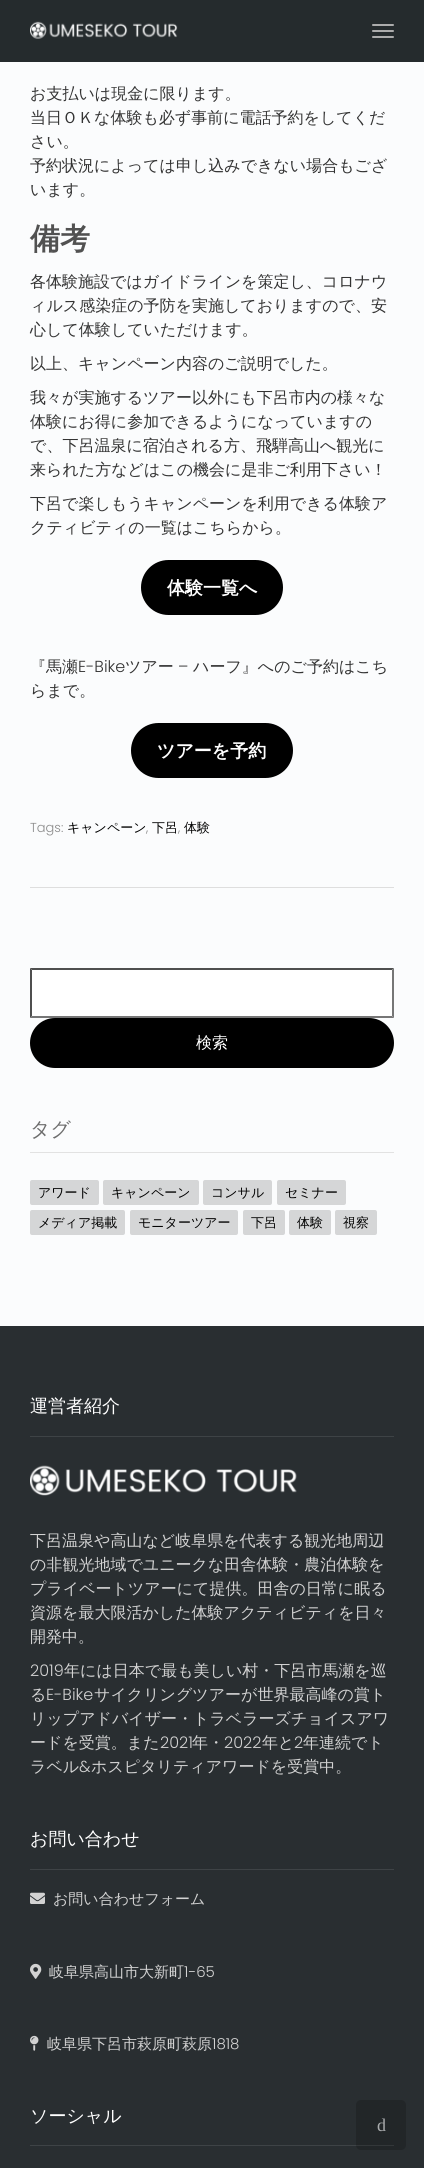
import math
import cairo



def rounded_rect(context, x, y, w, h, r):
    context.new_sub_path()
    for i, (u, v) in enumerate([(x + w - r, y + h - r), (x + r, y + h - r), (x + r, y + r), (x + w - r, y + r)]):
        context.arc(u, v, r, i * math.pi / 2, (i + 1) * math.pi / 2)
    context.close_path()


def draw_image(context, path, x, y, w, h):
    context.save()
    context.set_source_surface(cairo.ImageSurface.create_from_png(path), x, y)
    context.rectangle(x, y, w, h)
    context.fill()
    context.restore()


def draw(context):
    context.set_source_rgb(251 / 255, 252 / 255, 253 / 255)
    context.paint()
    context.set_source_rgb(37 / 255, 43 / 255, 45 / 255)
    context.rectangle(0, 0, 424, 62)
    context.fill()
    draw_image(context, "images/1.png", 30, 21, 148, 18)
    context.set_source_rgb(172 / 255, 172 / 255, 172 / 255)
    rounded_rect(context, 372, 24, 22, 2, 1)
    context.fill()
    rounded_rect(context, 372, 30, 22, 2, 1)
    context.fill()
    rounded_rect(context, 372, 36, 22, 2, 1)
    context.fill()
    context.set_source_rgb(222 / 255, 222 / 255, 222 / 255)
    context.rectangle(30, 887, 364, 1)
    context.fill()
    context.set_source_rgb(0, 0, 0)
    rounded_rect(context, 141, 560, 142, 55, 27.5)
    context.fill()
    rounded_rect(context, 131, 723, 162, 55, 27.5)
    context.fill()
    context.set_source_rgb(1, 1, 1)
    context.rectangle(30, 968, 364, 50)
    context.fill()
    context.set_source_rgb(79 / 255, 79 / 255, 79 / 255)
    context.new_path()
    context.move_to(30, 968)
    context.line_to(394, 968)
    context.line_to(392, 970)
    context.line_to(32, 970)
    context.close_path()
    context.fill()
    context.set_source_rgb(118 / 255, 118 / 255, 118 / 255)
    context.new_path()
    context.move_to(394, 968)
    context.line_to(394, 1018)
    context.line_to(392, 1016)
    context.line_to(392, 970)
    context.close_path()
    context.fill()
    context.new_path()
    context.move_to(394, 1018)
    context.line_to(30, 1018)
    context.line_to(32, 1016)
    context.line_to(392, 1016)
    context.close_path()
    context.fill()
    context.set_source_rgb(79 / 255, 79 / 255, 79 / 255)
    context.new_path()
    context.move_to(30, 1018)
    context.line_to(30, 968)
    context.line_to(32, 970)
    context.line_to(32, 1016)
    context.close_path()
    context.fill()
    context.set_source_rgb(0, 0, 0)
    rounded_rect(context, 30, 1018, 364, 50, 25)
    context.fill()
    context.set_source_rgb(226 / 255, 226 / 255, 226 / 255)
    context.rectangle(30, 1152, 364, 1)
    context.fill()
    context.set_source_rgb(213 / 255, 214 / 255, 215 / 255)
    rounded_rect(context, 30, 1180, 69, 25, 2)
    context.fill()
    rounded_rect(context, 103, 1180, 96, 25, 2)
    context.fill()
    rounded_rect(context, 203, 1180, 69, 25, 2)
    context.fill()
    rounded_rect(context, 277, 1180, 69, 25, 2)
    context.fill()
    rounded_rect(context, 30, 1210, 95, 25, 2)
    context.fill()
    rounded_rect(context, 130, 1210, 108, 25, 2)
    context.fill()
    rounded_rect(context, 243, 1210, 42, 25, 2)
    context.fill()
    rounded_rect(context, 289, 1210, 42, 25, 2)
    context.fill()
    rounded_rect(context, 335, 1210, 42, 25, 2)
    context.fill()
    context.set_source_rgb(41 / 255, 46 / 255, 49 / 255)
    context.rectangle(0, 1326, 424, 842)
    context.fill()
    context.set_source_rgb(62 / 255, 67 / 255, 70 / 255)
    context.rectangle(30, 1436, 364, 1)
    context.fill()
    draw_image(context, "images/2.png", 30, 1465, 267, 31)
    context.rectangle(30, 1869, 364, 1)
    context.fill()
    draw_image(context, "images/3.png", 30, 1892, 15, 12)
    draw_image(context, "images/4.png", 30, 1963, 12, 16)
    draw_image(context, "images/5.png", 30, 2035, 9, 16)
    context.rectangle(30, 2145, 364, 1)
    context.fill()
    context.set_source_rgba(0, 0, 0, 0.18)
    rounded_rect(context, 356, 2100, 50, 50, 5)
    context.fill()
    context.select_font_face("WenQuanYi Zen Hei Medium")
    context.set_font_size(16)
    context.set_source_rgb(51 / 255, 51 / 255, 51 / 255)
    context.move_to(30, 99)
    context.show_text("お支払いは現金に限ります。")
    context.move_to(30, 123)
    context.show_text("当日ＯＫな体験も必ず事前に電話予約をしてくだ")
    context.move_to(30, 147)
    context.show_text("さい。")
    context.move_to(30, 171)
    context.show_text("予約状況によっては申し込みできない場合もござ")
    context.move_to(30, 195)
    context.show_text("います。")
    context.select_font_face("WenQuanYi Zen Hei", cairo.FontSlant.NORMAL, cairo.FontWeight.BOLD)
    context.set_font_size(30)
    context.set_source_rgb(81 / 255, 81 / 255, 81 / 255)
    context.move_to(30, 249)
    context.show_text("備考")
    context.select_font_face("WenQuanYi Zen Hei Medium")
    context.set_font_size(16)
    context.set_source_rgb(51 / 255, 51 / 255, 51 / 255)
    context.move_to(30, 287)
    context.show_text("各体験施設ではガイドラインを策定し、コロナウ")
    context.move_to(30, 311)
    context.show_text("ィルス感染症の予防を実施しておりますので、安")
    context.move_to(30, 335)
    context.show_text("心して体験していただけます。")
    context.move_to(30, 369)
    context.show_text("以上、キャンペーン内容のご説明でした。")
    context.move_to(30, 403)
    context.show_text("我々が実施するツアー以外にも下呂市内の様々な")
    context.move_to(30, 427)
    context.show_text("体験にお得に参加できるようになっていますの")
    context.move_to(30, 451)
    context.show_text("で、下呂温泉に宿泊される方、飛騨高山へ観光に")
    context.move_to(30, 475)
    context.show_text("来られた方などはこの機会に是非ご利用下さい！")
    context.move_to(30, 509)
    context.show_text("下呂で楽しもうキャンペーンを利用できる体験ア")
    context.move_to(30, 533)
    context.show_text("クティビティの一覧はこちらから。")
    context.select_font_face("WenQuanYi Zen Hei", cairo.FontSlant.NORMAL, cairo.FontWeight.BOLD)
    context.set_font_size(18)
    context.set_source_rgb(1, 1, 1)
    context.move_to(167, 594)
    context.show_text("体験一覧へ")
    context.select_font_face("WenQuanYi Zen Hei Medium")
    context.set_font_size(16)
    context.set_source_rgb(51 / 255, 51 / 255, 51 / 255)
    context.move_to(30, 672)
    context.show_text("『馬瀬")
    context.select_font_face("Poppins Light")
    context.move_to(78, 672)
    context.show_text("E-Bike")
    context.select_font_face("WenQuanYi Zen Hei Medium")
    context.move_to(125, 672)
    context.show_text("ツアー")
    context.select_font_face("Poppins Light")
    context.move_to(178, 672)
    context.show_text("–")
    context.select_font_face("WenQuanYi Zen Hei Medium")
    context.move_to(193, 672)
    context.show_text("ハーフ』へのご予約はこち")
    context.move_to(30, 696)
    context.show_text("らまで。")
    context.select_font_face("WenQuanYi Zen Hei", cairo.FontSlant.NORMAL, cairo.FontWeight.BOLD)
    context.set_font_size(18)
    context.set_source_rgb(1, 1, 1)
    context.move_to(157, 757)
    context.show_text("ツアーを予約")
    context.select_font_face("Poppins Light")
    context.set_font_size(13)
    context.set_source_rgb(139 / 255, 139 / 255, 139 / 255)
    context.move_to(30, 832)
    context.show_text("Tags:")
    context.select_font_face("WenQuanYi Zen Hei Medium")
    context.set_source_rgb(0, 0, 0)
    context.move_to(67, 832)
    context.show_text("キャンペーン")
    context.select_font_face("Poppins Light")
    context.set_source_rgb(139 / 255, 139 / 255, 139 / 255)
    context.move_to(146, 832)
    context.show_text(",")
    context.select_font_face("WenQuanYi Zen Hei Medium")
    context.set_source_rgb(0, 0, 0)
    context.move_to(152, 832)
    context.show_text("下呂")
    context.select_font_face("Poppins Light")
    context.set_source_rgb(139 / 255, 139 / 255, 139 / 255)
    context.move_to(178, 832)
    context.show_text(",")
    context.select_font_face("WenQuanYi Zen Hei Medium")
    context.set_source_rgb(0, 0, 0)
    context.move_to(184, 832)
    context.show_text("体験")
    context.set_font_size(16)
    context.set_source_rgb(1, 1, 1)
    context.move_to(196, 1048)
    context.show_text("検索")
    context.set_font_size(20)
    context.set_source_rgb(109 / 255, 109 / 255, 109 / 255)
    context.move_to(30, 1136)
    context.show_text("タグ")
    context.set_font_size(13)
    context.set_source_rgb(0, 0, 0)
    context.move_to(38, 1197)
    context.show_text("アワード")
    context.move_to(111, 1197)
    context.show_text("キャンペーン")
    context.move_to(211, 1197)
    context.show_text("コンサル")
    context.move_to(285, 1197)
    context.show_text("セミナー")
    context.move_to(38, 1227)
    context.show_text("メディア掲載")
    context.move_to(138, 1227)
    context.show_text("モニターツアー")
    context.move_to(251, 1227)
    context.show_text("下呂")
    context.move_to(297, 1227)
    context.show_text("体験")
    context.move_to(343, 1227)
    context.show_text("視察")
    context.set_font_size(18)
    context.set_source_rgb(1, 1, 1)
    context.move_to(30, 1412)
    context.show_text("運営者紹介")
    context.set_font_size(16)
    context.set_source_rgb(210 / 255, 210 / 255, 210 / 255)
    context.move_to(30, 1546)
    context.show_text("下呂温泉や高山など岐阜県を代表する観光地周辺")
    context.move_to(30, 1570)
    context.show_text("の非観光地域でユニークな田舎体験・農泊体験を")
    context.move_to(30, 1594)
    context.show_text("プライベートツアーにて提供。田舎の日常に眠る")
    context.move_to(30, 1618)
    context.show_text("資源を最大限活かした体験アクティビティを日々")
    context.move_to(30, 1642)
    context.show_text("開発中。")
    context.select_font_face("Poppins Light")
    context.move_to(30, 1676)
    context.show_text("2019")
    context.select_font_face("WenQuanYi Zen Hei Medium")
    context.move_to(64, 1676)
    context.show_text("年には日本で最も美しい村・下呂市馬瀬を巡")
    context.move_to(30, 1700)
    context.show_text("る")
    context.select_font_face("Poppins Light")
    context.move_to(46, 1700)
    context.show_text("E-Bike")
    context.select_font_face("WenQuanYi Zen Hei Medium")
    context.move_to(94, 1700)
    context.show_text("サイクリングツアーが世界最高峰の賞ト")
    context.move_to(30, 1724)
    context.show_text("リップアドバイザー・トラベラーズチョイスアワ")
    context.move_to(30, 1748)
    context.show_text("ードを受賞。また")
    context.select_font_face("Poppins Light")
    context.move_to(160, 1748)
    context.show_text("2021")
    context.select_font_face("WenQuanYi Zen Hei Medium")
    context.move_to(192, 1748)
    context.show_text("年・")
    context.select_font_face("Poppins Light")
    context.move_to(224, 1748)
    context.show_text("2022")
    context.select_font_face("WenQuanYi Zen Hei Medium")
    context.move_to(262, 1748)
    context.show_text("年と")
    context.select_font_face("Poppins Light")
    context.move_to(294, 1748)
    context.show_text("2")
    context.select_font_face("WenQuanYi Zen Hei Medium")
    context.move_to(303, 1748)
    context.show_text("年連続でト")
    context.move_to(30, 1772)
    context.show_text("ラベル")
    context.select_font_face("Poppins Light")
    context.move_to(79, 1772)
    context.show_text("&")
    context.select_font_face("WenQuanYi Zen Hei Medium")
    context.move_to(91, 1772)
    context.show_text("ホスピタリティアワードを受賞中。")
    context.set_font_size(18)
    context.set_source_rgb(1, 1, 1)
    context.move_to(30, 1845)
    context.show_text("お問い合わせ")
    context.set_font_size(15)
    context.set_source_rgb(210 / 255, 210 / 255, 210 / 255)
    context.move_to(53, 1904)
    context.show_text("お問い合わせフォーム")
    context.move_to(49, 1977)
    context.show_text("岐阜県高山市大新町")
    context.select_font_face("Poppins Light")
    context.move_to(184, 1977)
    context.show_text("1-65")
    context.select_font_face("WenQuanYi Zen Hei Medium")
    context.move_to(47, 2049)
    context.show_text("岐阜県下呂市萩原町萩原")
    context.select_font_face("Poppins Light")
    context.move_to(212, 2049)
    context.show_text("1818")
    context.select_font_face("WenQuanYi Zen Hei Medium")
    context.set_font_size(18)
    context.set_source_rgb(1, 1, 1)
    context.move_to(30, 2122)
    context.show_text("ソーシャル")
    context.select_font_face("Liberation Serif")
    context.set_source_rgb(169 / 255, 171 / 255, 173 / 255)
    context.move_to(377, 2131)
    context.show_text("d")


surface = cairo.ImageSurface(cairo.Format.RGB24, 424, 2168)
context = cairo.Context(surface)
options = cairo.FontOptions()
options.set_hint_metrics(cairo.HintMetrics.OFF)
options.set_hint_style(cairo.HintStyle.NONE)
context.set_font_options(options)
context.set_miter_limit(4)
draw(context)
surface.write_to_png("out.png")
